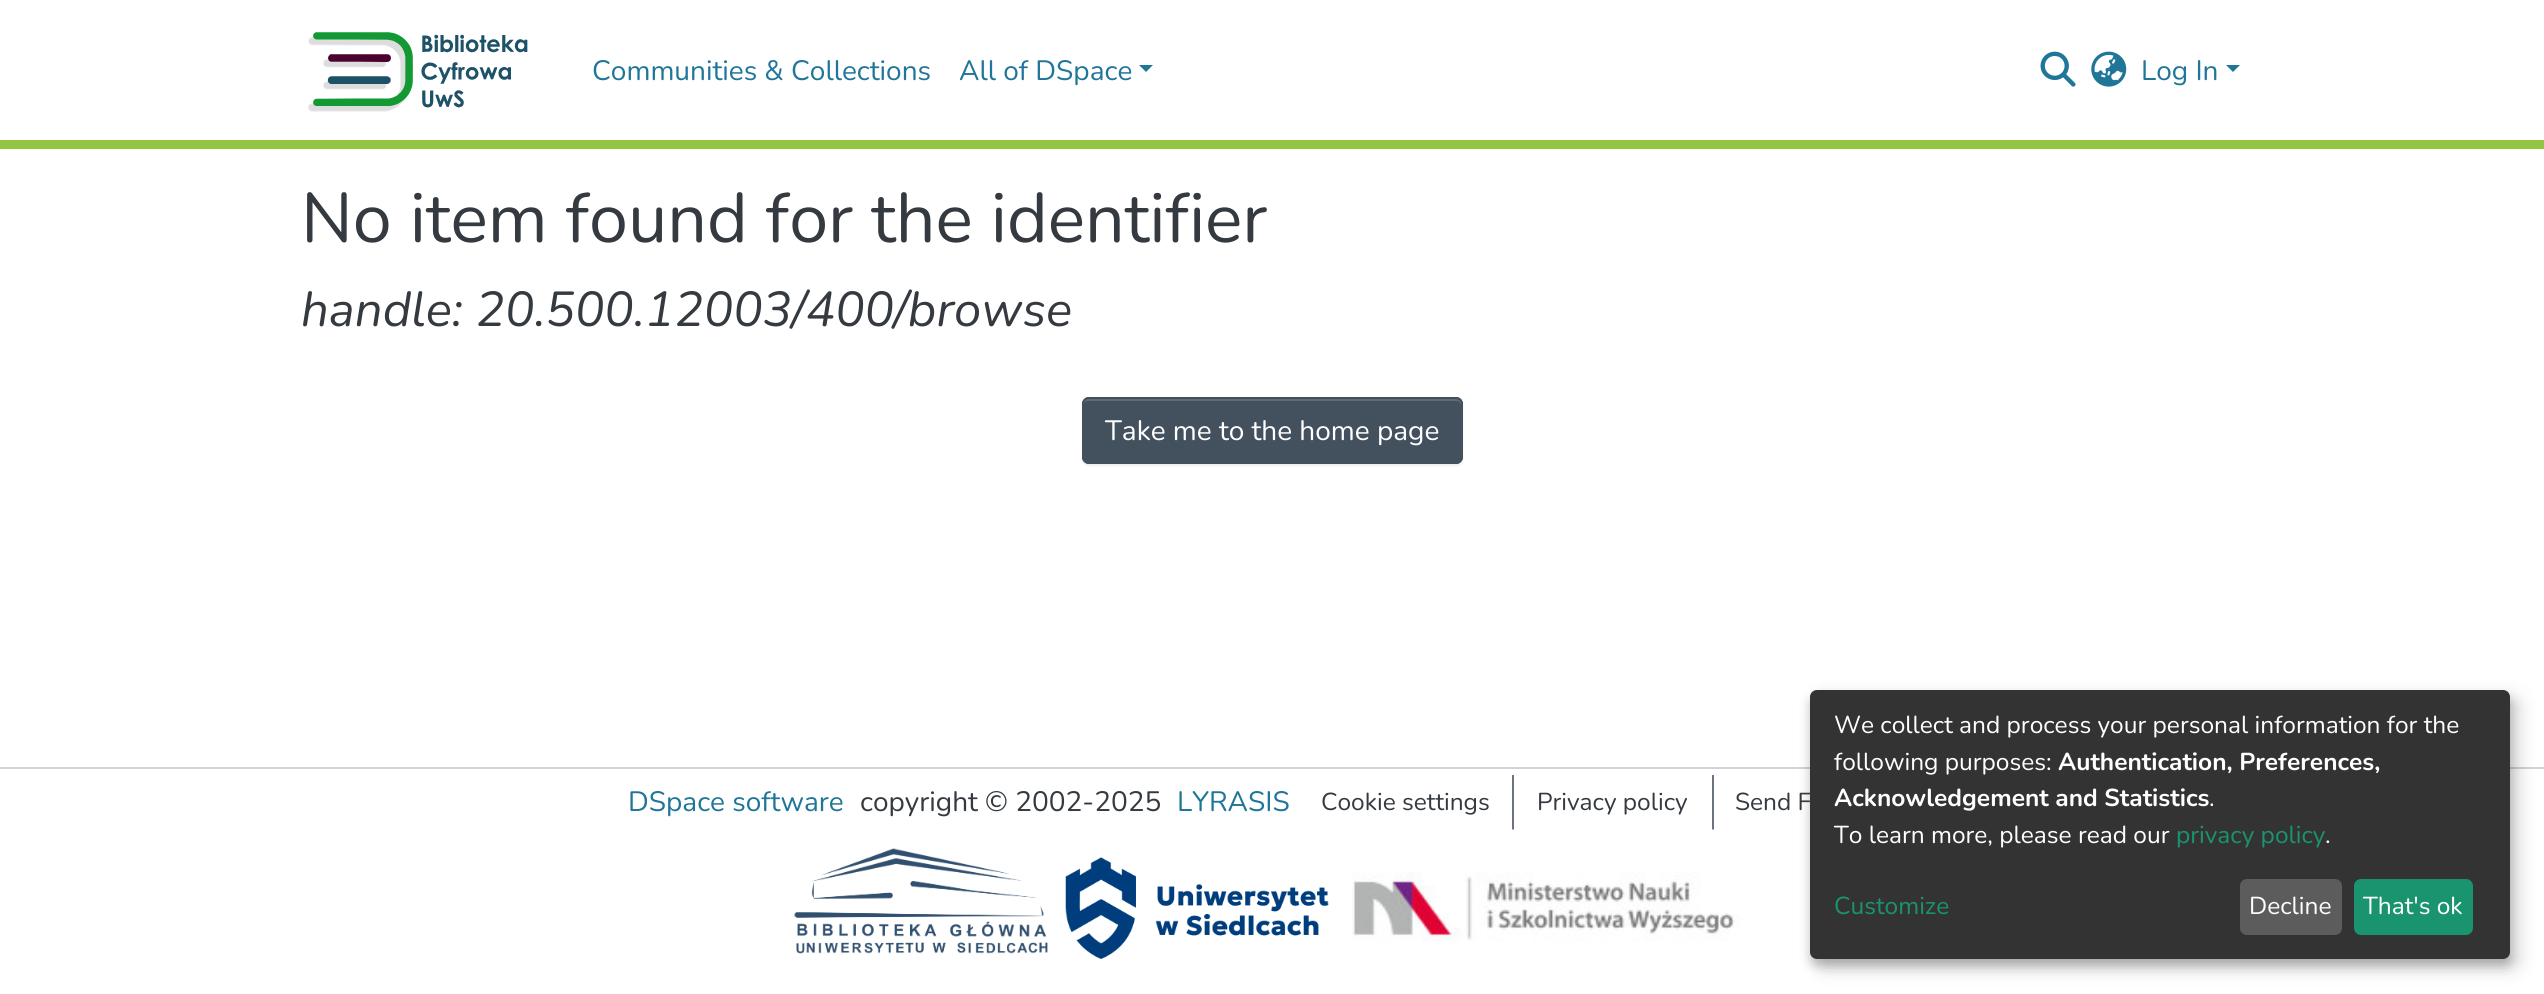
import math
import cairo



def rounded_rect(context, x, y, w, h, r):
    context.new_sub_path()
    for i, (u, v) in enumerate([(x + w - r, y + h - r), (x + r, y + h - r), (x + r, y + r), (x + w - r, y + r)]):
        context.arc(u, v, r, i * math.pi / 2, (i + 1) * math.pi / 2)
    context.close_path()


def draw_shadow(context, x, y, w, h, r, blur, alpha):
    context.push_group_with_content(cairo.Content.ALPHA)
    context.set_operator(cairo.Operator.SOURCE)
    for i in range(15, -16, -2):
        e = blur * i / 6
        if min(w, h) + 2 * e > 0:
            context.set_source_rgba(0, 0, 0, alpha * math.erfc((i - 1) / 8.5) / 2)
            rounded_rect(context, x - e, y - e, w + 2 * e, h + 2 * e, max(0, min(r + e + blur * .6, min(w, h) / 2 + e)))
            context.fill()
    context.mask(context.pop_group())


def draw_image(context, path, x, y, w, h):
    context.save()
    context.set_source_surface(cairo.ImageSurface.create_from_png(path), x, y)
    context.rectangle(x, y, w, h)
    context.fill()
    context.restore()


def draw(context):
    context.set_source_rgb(1, 1, 1)
    context.paint()
    context.set_source_rgb(146 / 255, 198 / 255, 66 / 255)
    context.rectangle(0, 140, 2544, 9)
    context.fill()
    draw_image(context, "images/1.png", 308, 32, 220, 80)
    context.set_source_rgb(32 / 255, 118 / 255, 152 / 255)
    context.new_path()
    context.move_to(1139, 65)
    context.line_to(1153, 65)
    context.line_to(1146, 72)
    context.close_path()
    context.fill()
    draw_image(context, "images/2.png", 2040, 51, 36, 36)
    draw_image(context, "images/3.png", 2091, 51, 36, 36)
    context.new_path()
    context.move_to(2226, 65)
    context.line_to(2240, 65)
    context.line_to(2233, 72)
    context.close_path()
    context.fill()
    context.set_source_rgb(0, 0, 0)
    draw_shadow(context, 1082, 399, 381, 67, 7, 1, 0.07)
    context.set_source_rgb(67 / 255, 81 / 255, 95 / 255)
    rounded_rect(context, 1082, 397, 381, 67, 7)
    context.fill()
    context.set_source_rgb(95 / 255, 107 / 255, 119 / 255)
    context.new_path()
    context.move_to(1088, 401)
    context.line_to(1456, 401)
    context.curve_to(1459, 401, 1461, 403, 1461, 406)
    context.line_to(1461, 404)
    context.curve_to(1461, 401, 1459, 399, 1456, 399)
    context.line_to(1088, 399)
    context.curve_to(1085, 399, 1083, 401, 1083, 404)
    context.line_to(1083, 406)
    context.curve_to(1083, 403, 1086, 401, 1088, 401)
    context.close_path()
    context.fill()
    rounded_rect(context, 1083, 398, 379, 65, 6)
    context.set_source_rgb(67 / 255, 81 / 255, 95 / 255)
    context.stroke()
    context.set_source_rgb(206 / 255, 212 / 255, 218 / 255)
    context.rectangle(0, 767, 2544, 2)
    context.fill()
    context.set_source_rgb(108 / 255, 117 / 255, 125 / 255)
    context.rectangle(1512, 775, 2, 55)
    context.fill()
    context.rectangle(1712, 775, 2, 55)
    context.fill()
    draw_image(context, "images/4.png", 794, 848, 254, 106)
    draw_image(context, "images/5.png", 1065, 857, 264, 102)
    draw_image(context, "images/6.png", 1352, 829, 389, 113)
    context.set_source_rgb(0, 0, 0)
    draw_shadow(context, 1818, 698, 700, 270, 7, 9, 0.19)
    draw_shadow(context, 1810, 697, 700, 269, 7, 5, 0.2)
    context.select_font_face("Nunito")
    context.set_font_size(28)
    context.set_source_rgb(32 / 255, 118 / 255, 152 / 255)
    context.move_to(592, 80)
    context.show_text("Communities & Collections")
    context.move_to(959, 80)
    context.show_text("All of DSpace")
    context.move_to(2141, 80)
    context.show_text("Log In")
    context.set_font_size(70)
    context.set_source_rgb(52 / 255, 58 / 255, 64 / 255)
    context.move_to(301, 242)
    context.show_text("No item found for the identifier")
    context.select_font_face("Nunito", cairo.FontSlant.ITALIC)
    context.set_font_size(49)
    context.move_to(301, 326)
    context.show_text("handle: 20.500.12003/400/browse")
    context.select_font_face("Nunito")
    context.set_font_size(28)
    context.set_source_rgb(1, 1, 1)
    context.move_to(1105, 440)
    context.show_text("Take me to the home page")
    context.set_source_rgb(32 / 255, 118 / 255, 152 / 255)
    context.move_to(628, 811)
    context.show_text("DSpace software")
    context.set_source_rgb(52 / 255, 58 / 255, 64 / 255)
    context.move_to(860, 811)
    context.show_text("copyright © 2002-2025")
    context.set_source_rgb(32 / 255, 118 / 255, 152 / 255)
    context.move_to(1177, 811)
    context.show_text("LYRASIS")
    context.set_font_size(24.5)
    context.set_source_rgb(52 / 255, 58 / 255, 64 / 255)
    context.move_to(1321, 810)
    context.show_text("Cookie settings")
    context.move_to(1537, 810)
    context.show_text("Privacy policy")
    context.move_to(1735, 810)
    context.show_text("Send F")
    context.set_source_rgb(51 / 255, 51 / 255, 51 / 255)
    rounded_rect(context, 1810, 690, 700, 269, 7)
    context.fill()
    context.set_source_rgb(1, 1, 1)
    context.move_to(1834, 733)
    context.show_text("We collect and process your personal information for the")
    context.move_to(1834, 770)
    context.show_text("following purposes:")
    context.select_font_face("Nunito", cairo.FontSlant.NORMAL, cairo.FontWeight.BOLD)
    context.move_to(2058, 770)
    context.show_text("Authentication, Preferences,")
    context.move_to(1834, 806)
    context.show_text("Acknowledgement and Statistics")
    context.select_font_face("Nunito")
    context.move_to(2209, 806)
    context.show_text(".")
    context.move_to(1834, 843)
    context.show_text("To learn more, please read our")
    context.set_source_rgb(26 / 255, 147 / 255, 111 / 255)
    context.move_to(2176, 843)
    context.show_text("privacy policy")
    context.set_source_rgb(1, 1, 1)
    context.move_to(2325, 843)
    context.show_text(".")
    context.set_source_rgb(26 / 255, 147 / 255, 111 / 255)
    context.move_to(1834, 914)
    context.show_text("Customize")
    context.set_source_rgb(92 / 255, 92 / 255, 92 / 255)
    rounded_rect(context, 2240, 879, 102, 56, 7)
    context.fill()
    context.set_source_rgb(1, 1, 1)
    context.move_to(2249, 914)
    context.show_text("Decline")
    context.set_source_rgb(26 / 255, 147 / 255, 111 / 255)
    rounded_rect(context, 2354, 879, 119, 56, 7)
    context.fill()
    context.set_source_rgb(1, 1, 1)
    context.move_to(2363, 914)
    context.show_text("That's ok")


surface = cairo.ImageSurface(cairo.Format.RGB24, 2544, 994)
context = cairo.Context(surface)
options = cairo.FontOptions()
options.set_hint_metrics(cairo.HintMetrics.OFF)
options.set_hint_style(cairo.HintStyle.NONE)
context.set_font_options(options)
context.set_miter_limit(4)
draw(context)
surface.write_to_png("out.png")
